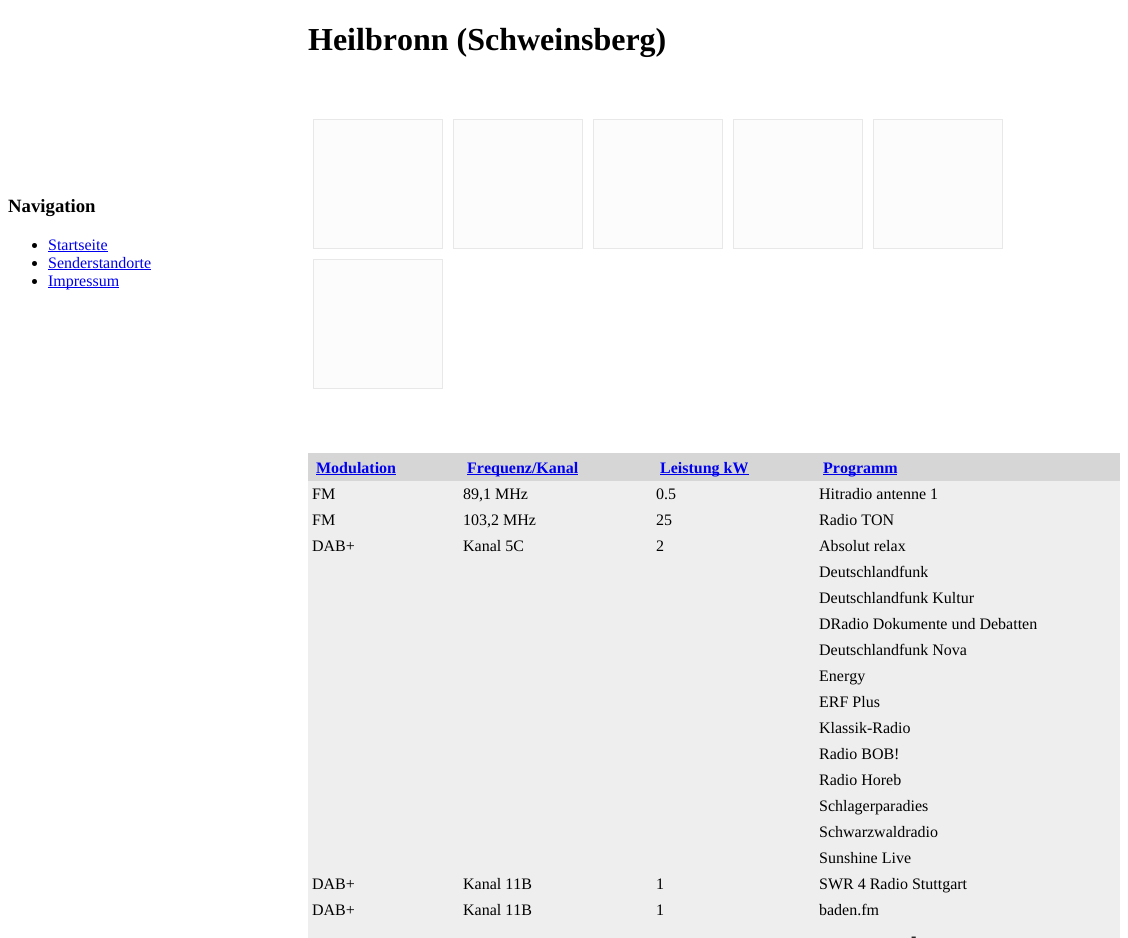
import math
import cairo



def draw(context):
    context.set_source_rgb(1, 1, 1)
    context.paint()
    context.set_source_rgb(0, 0, 0)
    context.arc(34.5, 245.5, 2.5, 0, 2 * math.pi)
    context.fill()
    context.set_source_rgb(0, 0, 238 / 255)
    context.rectangle(48, 251, 60, 1)
    context.fill()
    context.set_source_rgb(0, 0, 0)
    context.arc(34.5, 263.5, 2.5, 0, 2 * math.pi)
    context.fill()
    context.set_source_rgb(0, 0, 238 / 255)
    context.rectangle(48, 269, 103, 1)
    context.fill()
    context.set_source_rgb(0, 0, 0)
    context.arc(34.5, 281.5, 2.5, 0, 2 * math.pi)
    context.fill()
    context.set_source_rgb(0, 0, 238 / 255)
    context.rectangle(48, 287, 71, 1)
    context.fill()
    context.set_source_rgb(252 / 255, 252 / 255, 252 / 255)
    context.rectangle(313.5, 119.5, 129, 129)
    context.fill_preserve()
    context.set_source_rgb(232 / 255, 232 / 255, 232 / 255)
    context.set_line_width(1)
    context.stroke()
    context.set_source_rgb(252 / 255, 252 / 255, 252 / 255)
    context.rectangle(453.5, 119.5, 129, 129)
    context.fill_preserve()
    context.set_source_rgb(232 / 255, 232 / 255, 232 / 255)
    context.stroke()
    context.set_source_rgb(252 / 255, 252 / 255, 252 / 255)
    context.rectangle(593.5, 119.5, 129, 129)
    context.fill_preserve()
    context.set_source_rgb(232 / 255, 232 / 255, 232 / 255)
    context.stroke()
    context.set_source_rgb(252 / 255, 252 / 255, 252 / 255)
    context.rectangle(733.5, 119.5, 129, 129)
    context.fill_preserve()
    context.set_source_rgb(232 / 255, 232 / 255, 232 / 255)
    context.stroke()
    context.set_source_rgb(252 / 255, 252 / 255, 252 / 255)
    context.rectangle(873.5, 119.5, 129, 129)
    context.fill_preserve()
    context.set_source_rgb(232 / 255, 232 / 255, 232 / 255)
    context.stroke()
    context.set_source_rgb(252 / 255, 252 / 255, 252 / 255)
    context.rectangle(313.5, 259.5, 129, 129)
    context.fill_preserve()
    context.set_source_rgb(232 / 255, 232 / 255, 232 / 255)
    context.stroke()
    context.set_source_rgb(214 / 255, 214 / 255, 214 / 255)
    context.rectangle(308, 453, 812, 28)
    context.fill()
    context.set_source_rgb(0, 0, 238 / 255)
    context.rectangle(316, 474, 80, 1)
    context.fill()
    context.rectangle(467, 474, 111, 1)
    context.fill()
    context.rectangle(660, 474, 89, 1)
    context.fill()
    context.rectangle(823, 474, 74, 1)
    context.fill()
    context.set_source_rgb(238 / 255, 238 / 255, 238 / 255)
    context.rectangle(308, 481, 812, 457)
    context.fill()
    context.select_font_face("Liberation Serif", cairo.FontSlant.NORMAL, cairo.FontWeight.BOLD)
    context.set_font_size(18.75)
    context.set_source_rgb(0, 0, 0)
    context.move_to(8, 212)
    context.show_text("Navigation")
    context.select_font_face("Liberation Serif")
    context.set_font_size(16)
    context.set_source_rgb(0, 0, 238 / 255)
    context.move_to(48, 250)
    context.show_text("Startseite")
    context.move_to(48, 268)
    context.show_text("Senderstandorte")
    context.move_to(48, 286)
    context.show_text("Impressum")
    context.select_font_face("Liberation Serif", cairo.FontSlant.NORMAL, cairo.FontWeight.BOLD)
    context.set_font_size(32)
    context.set_source_rgb(0, 0, 0)
    context.move_to(308, 50)
    context.show_text("Heilbronn (Schweinsberg)")
    context.set_font_size(16)
    context.set_source_rgb(0, 0, 238 / 255)
    context.move_to(316, 473)
    context.show_text("Modulation")
    context.move_to(467, 473)
    context.show_text("Frequenz/Kanal")
    context.move_to(660, 473)
    context.show_text("Leistung kW")
    context.move_to(823, 473)
    context.show_text("Programm")
    context.select_font_face("Liberation Serif")
    context.set_source_rgb(0, 0, 0)
    context.move_to(312, 499)
    context.show_text("FM")
    context.move_to(463, 499)
    context.show_text("89,1 MHz")
    context.move_to(656, 499)
    context.show_text("0.5")
    context.move_to(819, 499)
    context.show_text("Hitradio antenne 1")
    context.move_to(312, 525)
    context.show_text("FM")
    context.move_to(463, 525)
    context.show_text("103,2 MHz")
    context.move_to(656, 525)
    context.show_text("25")
    context.move_to(819, 525)
    context.show_text("Radio TON")
    context.move_to(312, 551)
    context.show_text("DAB+")
    context.move_to(463, 551)
    context.show_text("Kanal 5C")
    context.move_to(656, 551)
    context.show_text("2")
    context.move_to(819, 551)
    context.show_text("Absolut relax")
    context.move_to(819, 577)
    context.show_text("Deutschlandfunk")
    context.move_to(819, 603)
    context.show_text("Deutschlandfunk Kultur")
    context.move_to(819, 629)
    context.show_text("DRadio Dokumente und Debatten")
    context.move_to(819, 655)
    context.show_text("Deutschlandfunk Nova")
    context.move_to(819, 681)
    context.show_text("Energy")
    context.move_to(819, 707)
    context.show_text("ERF Plus")
    context.move_to(819, 733)
    context.show_text("Klassik-Radio")
    context.move_to(819, 759)
    context.show_text("Radio BOB!")
    context.move_to(819, 785)
    context.show_text("Radio Horeb")
    context.move_to(819, 811)
    context.show_text("Schlagerparadies")
    context.move_to(819, 837)
    context.show_text("Schwarzwaldradio")
    context.move_to(819, 863)
    context.show_text("Sunshine Live")
    context.move_to(312, 889)
    context.show_text("DAB+")
    context.move_to(463, 889)
    context.show_text("Kanal 11B")
    context.move_to(656, 889)
    context.show_text("1")
    context.move_to(819, 889)
    context.show_text("SWR 4 Radio Stuttgart")
    context.move_to(312, 915)
    context.show_text("DAB+")
    context.move_to(463, 915)
    context.show_text("Kanal 11B")
    context.move_to(656, 915)
    context.show_text("1")
    context.move_to(819, 915)
    context.show_text("baden.fm")
    context.move_to(911, 941)
    context.show_text("-")


surface = cairo.ImageSurface(cairo.Format.RGB24, 1128, 938)
context = cairo.Context(surface)
options = cairo.FontOptions()
options.set_hint_metrics(cairo.HintMetrics.OFF)
options.set_hint_style(cairo.HintStyle.NONE)
context.set_font_options(options)
context.set_miter_limit(4)
draw(context)
surface.write_to_png("out.png")
